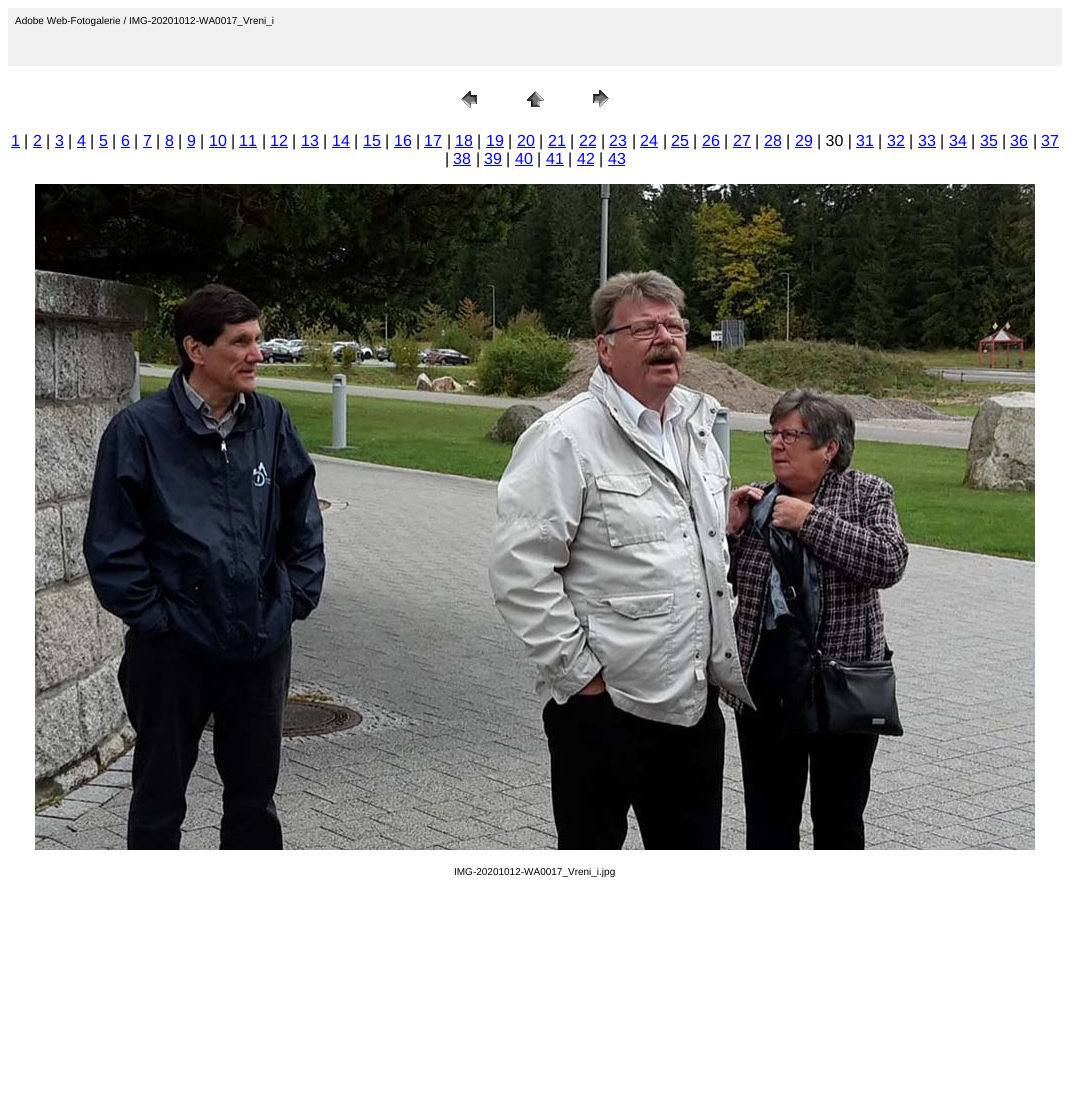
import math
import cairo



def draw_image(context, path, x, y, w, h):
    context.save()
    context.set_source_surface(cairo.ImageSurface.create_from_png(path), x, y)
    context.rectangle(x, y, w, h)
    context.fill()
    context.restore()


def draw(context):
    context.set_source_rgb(1, 1, 1)
    context.paint()
    context.set_source_rgb(240 / 255, 240 / 255, 240 / 255)
    context.rectangle(8, 8, 1054, 58)
    context.fill()
    draw_image(context, "images/1.png", 461, 91, 16, 17)
    draw_image(context, "images/2.png", 527, 91, 17, 16)
    draw_image(context, "images/3.png", 593, 90, 16, 17)
    context.set_source_rgb(0, 0, 1)
    context.rectangle(11, 147, 9, 1)
    context.fill()
    context.rectangle(33, 147, 9, 1)
    context.fill()
    context.rectangle(55, 147, 9, 1)
    context.fill()
    context.rectangle(77, 147, 9, 1)
    context.fill()
    context.rectangle(99, 147, 9, 1)
    context.fill()
    context.rectangle(121, 147, 9, 1)
    context.fill()
    context.rectangle(143, 147, 9, 1)
    context.fill()
    context.rectangle(165, 147, 9, 1)
    context.fill()
    context.rectangle(187, 147, 8, 1)
    context.fill()
    context.rectangle(209, 147, 17, 1)
    context.fill()
    context.rectangle(239, 147, 18, 1)
    context.fill()
    context.rectangle(270, 147, 18, 1)
    context.fill()
    context.rectangle(301, 147, 18, 1)
    context.fill()
    context.rectangle(332, 147, 18, 1)
    context.fill()
    context.rectangle(363, 147, 18, 1)
    context.fill()
    context.rectangle(394, 147, 17, 1)
    context.fill()
    context.rectangle(424, 147, 18, 1)
    context.fill()
    context.rectangle(455, 147, 18, 1)
    context.fill()
    context.rectangle(486, 147, 18, 1)
    context.fill()
    context.rectangle(517, 147, 18, 1)
    context.fill()
    context.rectangle(548, 147, 18, 1)
    context.fill()
    context.rectangle(579, 147, 17, 1)
    context.fill()
    context.rectangle(609, 147, 18, 1)
    context.fill()
    context.rectangle(640, 147, 18, 1)
    context.fill()
    context.rectangle(671, 147, 18, 1)
    context.fill()
    context.rectangle(702, 147, 18, 1)
    context.fill()
    context.rectangle(733, 147, 18, 1)
    context.fill()
    context.rectangle(764, 147, 17, 1)
    context.fill()
    context.rectangle(795, 147, 17, 1)
    context.fill()
    context.rectangle(856, 147, 18, 1)
    context.fill()
    context.rectangle(887, 147, 18, 1)
    context.fill()
    context.rectangle(918, 147, 18, 1)
    context.fill()
    context.rectangle(949, 147, 18, 1)
    context.fill()
    context.rectangle(980, 147, 17, 1)
    context.fill()
    context.rectangle(1010, 147, 18, 1)
    context.fill()
    context.rectangle(1041, 147, 18, 1)
    context.fill()
    context.rectangle(453, 165, 18, 1)
    context.fill()
    context.rectangle(484, 165, 18, 1)
    context.fill()
    context.rectangle(515, 165, 18, 1)
    context.fill()
    context.rectangle(546, 165, 18, 1)
    context.fill()
    context.rectangle(577, 165, 17, 1)
    context.fill()
    context.rectangle(608, 165, 17, 1)
    context.fill()
    draw_image(context, "images/4.png", 35, 184, 1000, 666)
    context.select_font_face("Liberation Sans")
    context.set_font_size(10)
    context.set_source_rgb(0, 0, 0)
    context.move_to(15, 24)
    context.show_text("Adobe Web-Fotogalerie / IMG-20201012-WA0017_Vreni_i")
    context.set_font_size(16)
    context.set_source_rgb(0, 0, 1)
    context.move_to(11, 146)
    context.show_text("1")
    context.set_source_rgb(0, 0, 0)
    context.move_to(24, 146)
    context.show_text("|")
    context.set_source_rgb(0, 0, 1)
    context.move_to(33, 146)
    context.show_text("2")
    context.set_source_rgb(0, 0, 0)
    context.move_to(46, 146)
    context.show_text("|")
    context.set_source_rgb(0, 0, 1)
    context.move_to(55, 146)
    context.show_text("3")
    context.set_source_rgb(0, 0, 0)
    context.move_to(68, 146)
    context.show_text("|")
    context.set_source_rgb(0, 0, 1)
    context.move_to(77, 146)
    context.show_text("4")
    context.set_source_rgb(0, 0, 0)
    context.move_to(90, 146)
    context.show_text("|")
    context.set_source_rgb(0, 0, 1)
    context.move_to(99, 146)
    context.show_text("5")
    context.set_source_rgb(0, 0, 0)
    context.move_to(112, 146)
    context.show_text("|")
    context.set_source_rgb(0, 0, 1)
    context.move_to(121, 146)
    context.show_text("6")
    context.set_source_rgb(0, 0, 0)
    context.move_to(134, 146)
    context.show_text("|")
    context.set_source_rgb(0, 0, 1)
    context.move_to(143, 146)
    context.show_text("7")
    context.set_source_rgb(0, 0, 0)
    context.move_to(156, 146)
    context.show_text("|")
    context.set_source_rgb(0, 0, 1)
    context.move_to(165, 146)
    context.show_text("8")
    context.set_source_rgb(0, 0, 0)
    context.move_to(178, 146)
    context.show_text("|")
    context.set_source_rgb(0, 0, 1)
    context.move_to(187, 146)
    context.show_text("9")
    context.set_source_rgb(0, 0, 0)
    context.move_to(200, 146)
    context.show_text("|")
    context.set_source_rgb(0, 0, 1)
    context.move_to(209, 146)
    context.show_text("10")
    context.set_source_rgb(0, 0, 0)
    context.move_to(231, 146)
    context.show_text("|")
    context.set_source_rgb(0, 0, 1)
    context.move_to(239, 146)
    context.show_text("11")
    context.set_source_rgb(0, 0, 0)
    context.move_to(262, 146)
    context.show_text("|")
    context.set_source_rgb(0, 0, 1)
    context.move_to(270, 146)
    context.show_text("12")
    context.set_source_rgb(0, 0, 0)
    context.move_to(292, 146)
    context.show_text("|")
    context.set_source_rgb(0, 0, 1)
    context.move_to(301, 146)
    context.show_text("13")
    context.set_source_rgb(0, 0, 0)
    context.move_to(323, 146)
    context.show_text("|")
    context.set_source_rgb(0, 0, 1)
    context.move_to(332, 146)
    context.show_text("14")
    context.set_source_rgb(0, 0, 0)
    context.move_to(354, 146)
    context.show_text("|")
    context.set_source_rgb(0, 0, 1)
    context.move_to(363, 146)
    context.show_text("15")
    context.set_source_rgb(0, 0, 0)
    context.move_to(385, 146)
    context.show_text("|")
    context.set_source_rgb(0, 0, 1)
    context.move_to(394, 146)
    context.show_text("16")
    context.set_source_rgb(0, 0, 0)
    context.move_to(416, 146)
    context.show_text("|")
    context.set_source_rgb(0, 0, 1)
    context.move_to(424, 146)
    context.show_text("17")
    context.set_source_rgb(0, 0, 0)
    context.move_to(447, 146)
    context.show_text("|")
    context.set_source_rgb(0, 0, 1)
    context.move_to(455, 146)
    context.show_text("18")
    context.set_source_rgb(0, 0, 0)
    context.move_to(477, 146)
    context.show_text("|")
    context.set_source_rgb(0, 0, 1)
    context.move_to(486, 146)
    context.show_text("19")
    context.set_source_rgb(0, 0, 0)
    context.move_to(508, 146)
    context.show_text("|")
    context.set_source_rgb(0, 0, 1)
    context.move_to(517, 146)
    context.show_text("20")
    context.set_source_rgb(0, 0, 0)
    context.move_to(539, 146)
    context.show_text("|")
    context.set_source_rgb(0, 0, 1)
    context.move_to(548, 146)
    context.show_text("21")
    context.set_source_rgb(0, 0, 0)
    context.move_to(570, 146)
    context.show_text("|")
    context.set_source_rgb(0, 0, 1)
    context.move_to(579, 146)
    context.show_text("22")
    context.set_source_rgb(0, 0, 0)
    context.move_to(601, 146)
    context.show_text("|")
    context.set_source_rgb(0, 0, 1)
    context.move_to(609, 146)
    context.show_text("23")
    context.set_source_rgb(0, 0, 0)
    context.move_to(632, 146)
    context.show_text("|")
    context.set_source_rgb(0, 0, 1)
    context.move_to(640, 146)
    context.show_text("24")
    context.set_source_rgb(0, 0, 0)
    context.move_to(663, 146)
    context.show_text("|")
    context.set_source_rgb(0, 0, 1)
    context.move_to(671, 146)
    context.show_text("25")
    context.set_source_rgb(0, 0, 0)
    context.move_to(693, 146)
    context.show_text("|")
    context.set_source_rgb(0, 0, 1)
    context.move_to(702, 146)
    context.show_text("26")
    context.set_source_rgb(0, 0, 0)
    context.move_to(724, 146)
    context.show_text("|")
    context.set_source_rgb(0, 0, 1)
    context.move_to(733, 146)
    context.show_text("27")
    context.set_source_rgb(0, 0, 0)
    context.move_to(755, 146)
    context.show_text("|")
    context.set_source_rgb(0, 0, 1)
    context.move_to(764, 146)
    context.show_text("28")
    context.set_source_rgb(0, 0, 0)
    context.move_to(786, 146)
    context.show_text("|")
    context.set_source_rgb(0, 0, 1)
    context.move_to(795, 146)
    context.show_text("29")
    context.set_source_rgb(0, 0, 0)
    context.move_to(817, 146)
    context.show_text("| 30 |")
    context.set_source_rgb(0, 0, 1)
    context.move_to(856, 146)
    context.show_text("31")
    context.set_source_rgb(0, 0, 0)
    context.move_to(878, 146)
    context.show_text("|")
    context.set_source_rgb(0, 0, 1)
    context.move_to(887, 146)
    context.show_text("32")
    context.set_source_rgb(0, 0, 0)
    context.move_to(909, 146)
    context.show_text("|")
    context.set_source_rgb(0, 0, 1)
    context.move_to(918, 146)
    context.show_text("33")
    context.set_source_rgb(0, 0, 0)
    context.move_to(940, 146)
    context.show_text("|")
    context.set_source_rgb(0, 0, 1)
    context.move_to(949, 146)
    context.show_text("34")
    context.set_source_rgb(0, 0, 0)
    context.move_to(971, 146)
    context.show_text("|")
    context.set_source_rgb(0, 0, 1)
    context.move_to(980, 146)
    context.show_text("35")
    context.set_source_rgb(0, 0, 0)
    context.move_to(1002, 146)
    context.show_text("|")
    context.set_source_rgb(0, 0, 1)
    context.move_to(1010, 146)
    context.show_text("36")
    context.set_source_rgb(0, 0, 0)
    context.move_to(1033, 146)
    context.show_text("|")
    context.set_source_rgb(0, 0, 1)
    context.move_to(1041, 146)
    context.show_text("37")
    context.set_source_rgb(0, 0, 0)
    context.move_to(445, 164)
    context.show_text("|")
    context.set_source_rgb(0, 0, 1)
    context.move_to(453, 164)
    context.show_text("38")
    context.set_source_rgb(0, 0, 0)
    context.move_to(476, 164)
    context.show_text("|")
    context.set_source_rgb(0, 0, 1)
    context.move_to(484, 164)
    context.show_text("39")
    context.set_source_rgb(0, 0, 0)
    context.move_to(506, 164)
    context.show_text("|")
    context.set_source_rgb(0, 0, 1)
    context.move_to(515, 164)
    context.show_text("40")
    context.set_source_rgb(0, 0, 0)
    context.move_to(537, 164)
    context.show_text("|")
    context.set_source_rgb(0, 0, 1)
    context.move_to(546, 164)
    context.show_text("41")
    context.set_source_rgb(0, 0, 0)
    context.move_to(568, 164)
    context.show_text("|")
    context.set_source_rgb(0, 0, 1)
    context.move_to(577, 164)
    context.show_text("42")
    context.set_source_rgb(0, 0, 0)
    context.move_to(599, 164)
    context.show_text("|")
    context.set_source_rgb(0, 0, 1)
    context.move_to(608, 164)
    context.show_text("43")
    context.set_font_size(10)
    context.set_source_rgb(0, 0, 0)
    context.move_to(454, 875)
    context.show_text("IMG-20201012-WA0017_Vreni_i.jpg")


surface = cairo.ImageSurface(cairo.Format.RGB24, 1070, 1101)
context = cairo.Context(surface)
options = cairo.FontOptions()
options.set_hint_metrics(cairo.HintMetrics.OFF)
options.set_hint_style(cairo.HintStyle.NONE)
context.set_font_options(options)
context.set_miter_limit(4)
draw(context)
surface.write_to_png("out.png")
